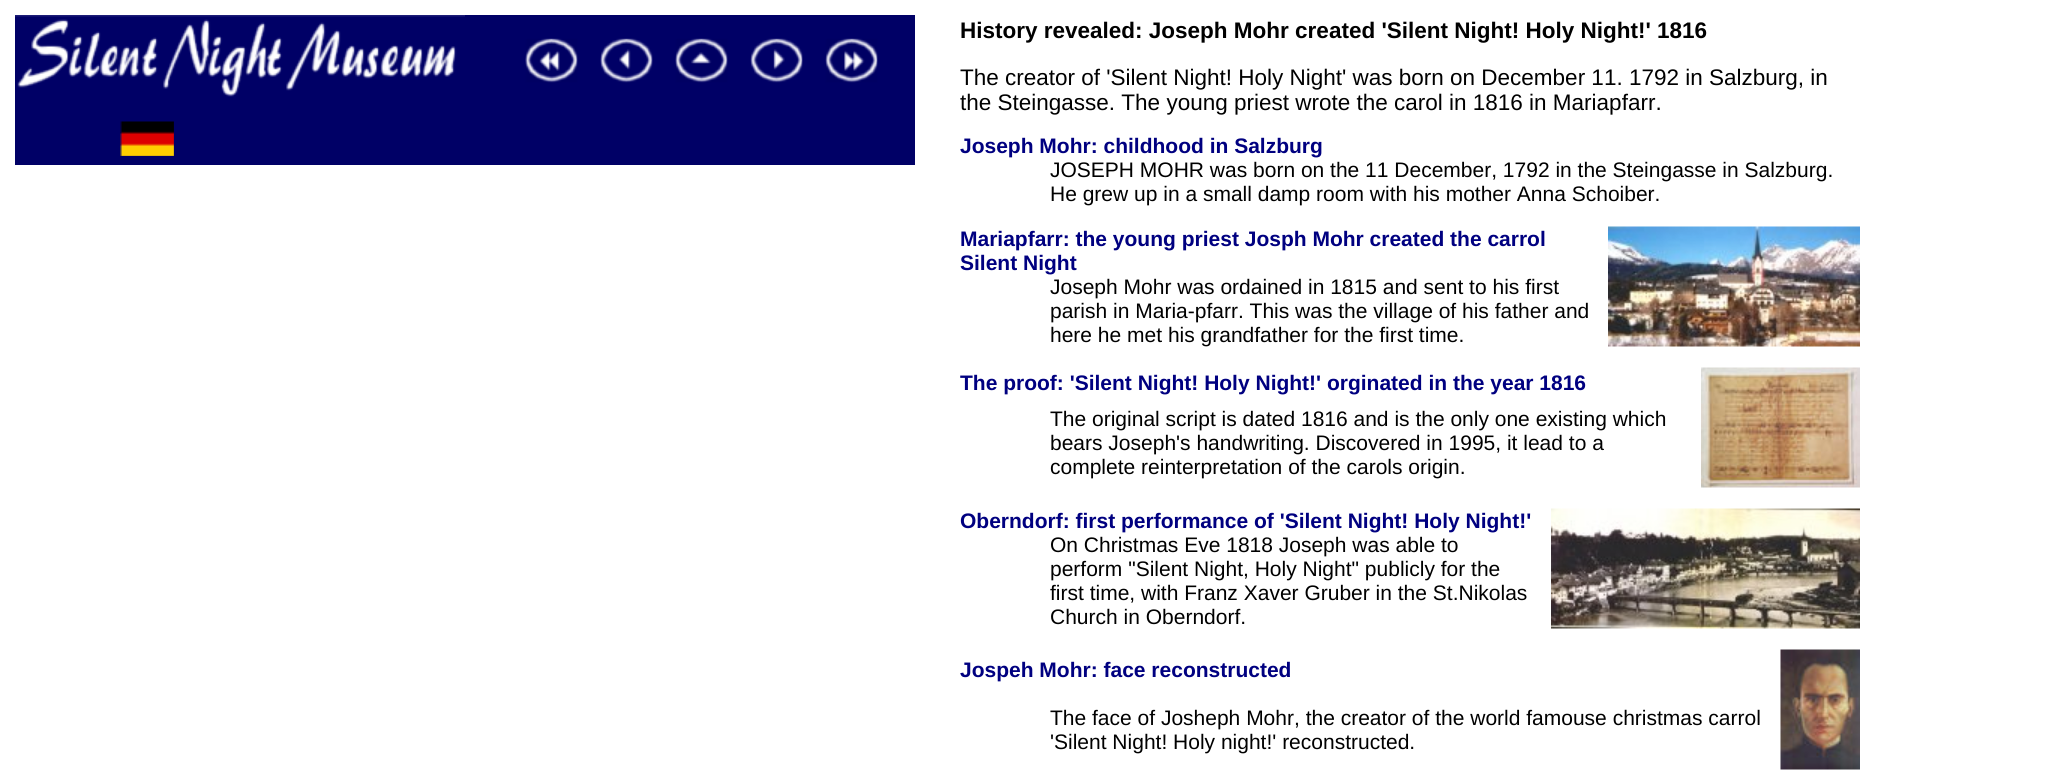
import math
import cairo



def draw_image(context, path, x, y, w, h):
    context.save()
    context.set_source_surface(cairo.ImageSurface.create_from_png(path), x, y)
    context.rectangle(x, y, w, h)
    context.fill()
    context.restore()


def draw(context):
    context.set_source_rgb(1, 1, 1)
    context.paint()
    context.set_source_rgb(0, 0, 102 / 255)
    context.rectangle(15, 15, 900, 150)
    context.fill()
    draw_image(context, "images/1.png", 15, 15, 450, 82)
    draw_image(context, "images/2.png", 525, 38, 53, 45)
    draw_image(context, "images/3.png", 600, 38, 53, 45)
    draw_image(context, "images/4.png", 675, 38, 53, 45)
    draw_image(context, "images/5.png", 750, 38, 53, 45)
    draw_image(context, "images/6.png", 825, 38, 53, 45)
    draw_image(context, "images/7.png", 120, 121, 54, 35)
    draw_image(context, "images/8.png", 1608, 226, 252, 121)
    draw_image(context, "images/9.png", 1701, 367, 159, 121)
    draw_image(context, "images/10.png", 1551, 508, 309, 121)
    draw_image(context, "images/11.png", 1780, 649, 80, 121)
    context.select_font_face("Liberation Sans", cairo.FontSlant.NORMAL, cairo.FontWeight.BOLD)
    context.set_font_size(22.5)
    context.set_source_rgb(0, 0, 0)
    context.move_to(960, 38)
    context.show_text("History revealed: Joseph Mohr created 'Silent Night! Holy Night!' 1816")
    context.select_font_face("Liberation Sans")
    context.move_to(960, 85)
    context.show_text("The creator of 'Silent Night! Holy Night' was born on December 11. 1792 in Salzburg, in")
    context.move_to(960, 110)
    context.show_text("the Steingasse. The young priest wrote the carol in 1816 in Mariapfarr.")
    context.select_font_face("Liberation Sans", cairo.FontSlant.NORMAL, cairo.FontWeight.BOLD)
    context.set_font_size(21)
    context.set_source_rgb(0, 0, 128 / 255)
    context.move_to(960, 153)
    context.show_text("Joseph Mohr: childhood in Salzburg")
    context.select_font_face("Liberation Sans")
    context.set_source_rgb(0, 0, 0)
    context.move_to(1050, 177)
    context.show_text("JOSEPH MOHR was born on the 11 December, 1792 in the Steingasse in Salzburg.")
    context.move_to(1050, 201)
    context.show_text("He grew up in a small damp room with his mother Anna Schoiber.")
    context.select_font_face("Liberation Sans", cairo.FontSlant.NORMAL, cairo.FontWeight.BOLD)
    context.set_source_rgb(0, 0, 128 / 255)
    context.move_to(960, 246)
    context.show_text("Mariapfarr: the young priest Josph Mohr created the carrol")
    context.move_to(960, 270)
    context.show_text("Silent Night")
    context.select_font_face("Liberation Sans")
    context.set_source_rgb(0, 0, 0)
    context.move_to(1050, 294)
    context.show_text("Joseph Mohr was ordained in 1815 and sent to his first")
    context.move_to(1050, 318)
    context.show_text("parish in Maria-pfarr. This was the village of his father and")
    context.move_to(1050, 342)
    context.show_text("here he met his grandfather for the first time.")
    context.select_font_face("Liberation Sans", cairo.FontSlant.NORMAL, cairo.FontWeight.BOLD)
    context.set_source_rgb(0, 0, 128 / 255)
    context.move_to(960, 390)
    context.show_text("The proof: 'Silent Night! Holy Night!' orginated in the year 1816")
    context.select_font_face("Liberation Sans")
    context.set_source_rgb(0, 0, 0)
    context.move_to(1050, 426)
    context.show_text("The original script is dated 1816 and is the only one existing which")
    context.move_to(1050, 450)
    context.show_text("bears Joseph's handwriting. Discovered in 1995, it lead to a")
    context.move_to(1050, 474)
    context.show_text("complete reinterpretation of the carols origin.")
    context.select_font_face("Liberation Sans", cairo.FontSlant.NORMAL, cairo.FontWeight.BOLD)
    context.set_source_rgb(0, 0, 128 / 255)
    context.move_to(960, 528)
    context.show_text("Oberndorf: first performance of 'Silent Night! Holy Night!'")
    context.select_font_face("Liberation Sans")
    context.set_source_rgb(0, 0, 0)
    context.move_to(1050, 552)
    context.show_text("On Christmas Eve 1818 Joseph was able to")
    context.move_to(1050, 576)
    context.show_text("perform \"Silent Night, Holy Night\" publicly for the")
    context.move_to(1050, 600)
    context.show_text("first time, with Franz Xaver Gruber in the St.Nikolas")
    context.move_to(1050, 624)
    context.show_text("Church in Oberndorf.")
    context.select_font_face("Liberation Sans", cairo.FontSlant.NORMAL, cairo.FontWeight.BOLD)
    context.set_source_rgb(0, 0, 128 / 255)
    context.move_to(960, 677)
    context.show_text("Jospeh Mohr: face reconstructed")
    context.select_font_face("Liberation Sans")
    context.set_source_rgb(0, 0, 0)
    context.move_to(1050, 725)
    context.show_text("The face of Josheph Mohr, the creator of the world famouse christmas carrol")
    context.move_to(1050, 749)
    context.show_text("'Silent Night! Holy night!' reconstructed.")


surface = cairo.ImageSurface(cairo.Format.RGB24, 2049, 770)
context = cairo.Context(surface)
options = cairo.FontOptions()
options.set_hint_metrics(cairo.HintMetrics.OFF)
options.set_hint_style(cairo.HintStyle.NONE)
context.set_font_options(options)
context.set_miter_limit(4)
draw(context)
surface.write_to_png("out.png")
